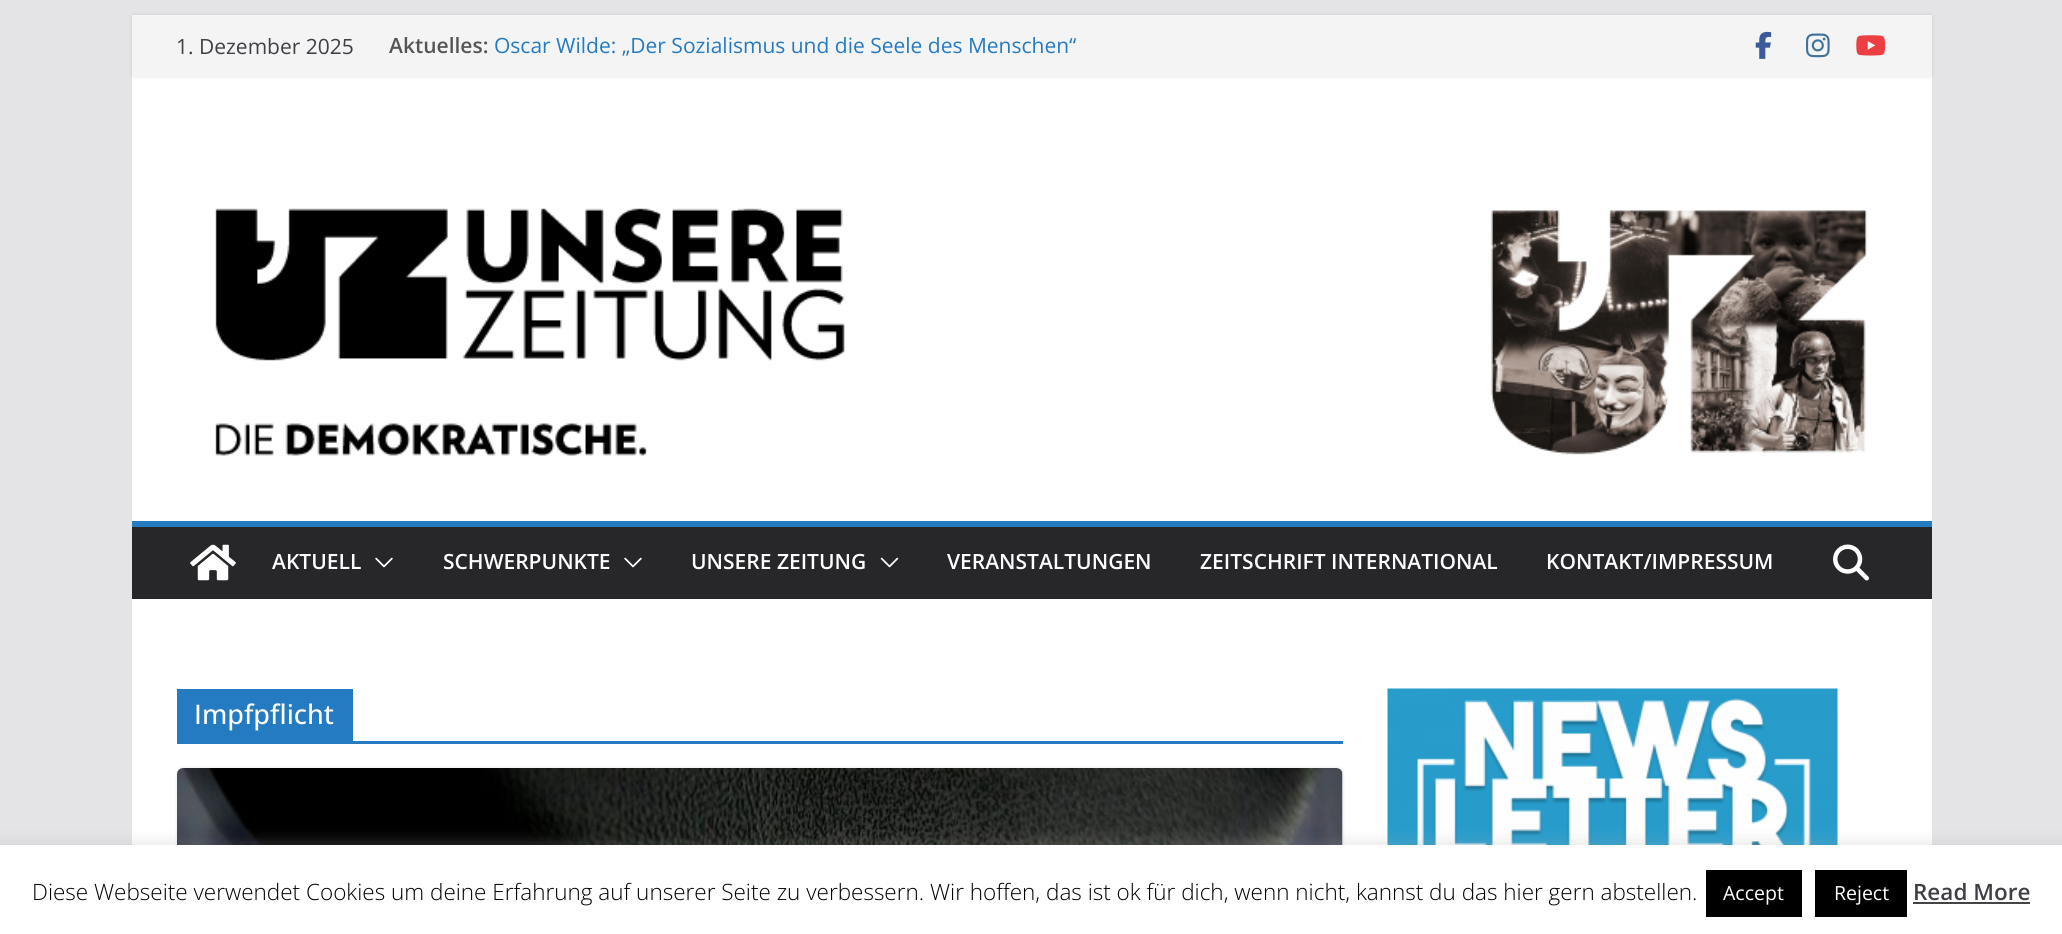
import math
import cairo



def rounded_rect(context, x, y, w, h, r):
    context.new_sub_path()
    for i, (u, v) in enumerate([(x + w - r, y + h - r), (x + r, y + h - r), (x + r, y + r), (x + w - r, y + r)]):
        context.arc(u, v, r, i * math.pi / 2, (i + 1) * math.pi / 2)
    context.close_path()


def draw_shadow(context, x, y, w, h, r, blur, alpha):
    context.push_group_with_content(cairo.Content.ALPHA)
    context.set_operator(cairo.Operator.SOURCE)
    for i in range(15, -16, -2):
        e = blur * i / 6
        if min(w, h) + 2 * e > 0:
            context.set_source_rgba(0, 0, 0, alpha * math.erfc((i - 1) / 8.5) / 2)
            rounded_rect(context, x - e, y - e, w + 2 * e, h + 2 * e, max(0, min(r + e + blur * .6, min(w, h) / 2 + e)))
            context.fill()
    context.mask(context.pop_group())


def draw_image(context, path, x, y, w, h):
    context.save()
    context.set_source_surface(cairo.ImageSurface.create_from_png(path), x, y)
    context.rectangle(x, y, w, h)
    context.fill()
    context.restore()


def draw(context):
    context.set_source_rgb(228 / 255, 228 / 255, 231 / 255)
    context.paint()
    context.set_source_rgb(1, 1, 1)
    context.rectangle(132, 77, 1800, 444)
    context.fill()
    context.set_source_rgb(0, 0, 0)
    draw_shadow(context, 132, 15, 1800, 62, 0, 1.5, 0.1)
    context.set_source_rgb(244 / 255, 244 / 255, 245 / 255)
    context.rectangle(132, 15, 1800, 62)
    context.fill()
    draw_image(context, "images/1.png", 1755, 31, 17, 28)
    draw_image(context, "images/2.png", 1806, 33, 24, 25)
    draw_image(context, "images/3.png", 1856, 35, 30, 21)
    draw_image(context, "images/4.png", 215, 208, 1653, 248)
    context.set_source_rgb(39 / 255, 39 / 255, 42 / 255)
    context.rectangle(132, 527, 1800, 72)
    context.fill()
    context.set_source_rgb(37 / 255, 123 / 255, 193 / 255)
    context.rectangle(132, 521, 1800, 6)
    context.fill()
    draw_image(context, "images/5.png", 190, 544, 46, 37)
    draw_image(context, "images/6.png", 375, 557, 18, 11)
    draw_image(context, "images/6.png", 624, 557, 18, 11)
    draw_image(context, "images/7.png", 880, 557, 19, 11)
    draw_image(context, "images/8.png", 1833, 544, 36, 37)
    context.set_source_rgb(1, 1, 1)
    context.rectangle(132, 599, 1800, 246)
    context.fill()
    context.set_source_rgb(37 / 255, 123 / 255, 193 / 255)
    context.rectangle(177, 741, 1166, 3)
    context.fill()
    context.rectangle(177, 689, 176, 52)
    context.fill()
    context.set_source_rgb(228 / 255, 228 / 255, 231 / 255)
    draw_shadow(context, 177, 768, 1166, 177, 6, 1.5, 1)
    draw_image(context, "images/9.png", 177, 768, 1166, 77)
    draw_image(context, "images/10.png", 1387, 688, 451, 157)
    context.set_source_rgb(172 / 255, 171 / 255, 171 / 255)
    draw_shadow(context, 0, 843, 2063, 90, 0, 7.5, 0.3)
    context.set_source_rgb(1, 1, 1)
    context.rectangle(0, 845, 2062, 89)
    context.fill()
    context.set_source_rgb(0, 0, 0)
    context.rectangle(1706, 870, 96, 47)
    context.fill()
    context.rectangle(1815, 870, 92, 47)
    context.fill()
    context.set_source_rgb(68 / 255, 68 / 255, 68 / 255)
    context.rectangle(1913, 902, 117, 2)
    context.fill()
    context.select_font_face("Open Sans")
    context.set_font_size(21)
    context.set_source_rgb(63 / 255, 63 / 255, 70 / 255)
    context.move_to(176, 54)
    context.show_text("1. Dezember 2025")
    context.select_font_face("Open Sans SemiBold")
    context.set_source_rgb(85 / 255, 85 / 255, 85 / 255)
    context.move_to(389, 53)
    context.show_text("Aktuelles:")
    context.select_font_face("Open Sans")
    context.set_source_rgb(37 / 255, 123 / 255, 193 / 255)
    context.move_to(494, 53)
    context.show_text("Oscar Wilde: „Der Sozialismus und die Seele des Menschen“")
    context.select_font_face("Open Sans SemiBold")
    context.set_source_rgb(1, 1, 1)
    context.move_to(272, 569)
    context.show_text("AKTUELL")
    context.move_to(443, 569)
    context.show_text("SCHWERPUNKTE")
    context.move_to(691, 569)
    context.show_text("UNSERE ZEITUNG")
    context.move_to(947, 569)
    context.show_text("VERANSTALTUNGEN")
    context.move_to(1200, 569)
    context.show_text("ZEITSCHRIFT INTERNATIONAL")
    context.move_to(1546, 569)
    context.show_text("KONTAKT/IMPRESSUM")
    context.select_font_face("Open Sans Medium")
    context.set_font_size(27)
    context.move_to(194, 724)
    context.show_text("Impfpflicht")
    context.select_font_face("Open Sans Light")
    context.set_font_size(22.5)
    context.set_source_rgb(0, 0, 0)
    context.move_to(32, 900)
    context.show_text("Diese Webseite verwendet Cookies um deine Erfahrung auf unserer Seite zu verbessern. Wir hoffen, das ist ok für dich, wenn nicht, kannst du das hier gern abstellen.")
    context.select_font_face("Open Sans")
    context.set_font_size(19.5)
    context.set_source_rgb(1, 1, 1)
    context.move_to(1723, 900)
    context.show_text("Accept")
    context.move_to(1834, 900)
    context.show_text("Reject")
    context.select_font_face("Open Sans SemiBold")
    context.set_font_size(22.5)
    context.set_source_rgb(63 / 255, 63 / 255, 70 / 255)
    context.move_to(1913, 900)
    context.show_text("Read More")


surface = cairo.ImageSurface(cairo.Format.RGB24, 2062, 934)
context = cairo.Context(surface)
options = cairo.FontOptions()
options.set_hint_metrics(cairo.HintMetrics.OFF)
options.set_hint_style(cairo.HintStyle.NONE)
context.set_font_options(options)
context.set_miter_limit(4)
draw(context)
surface.write_to_png("out.png")
